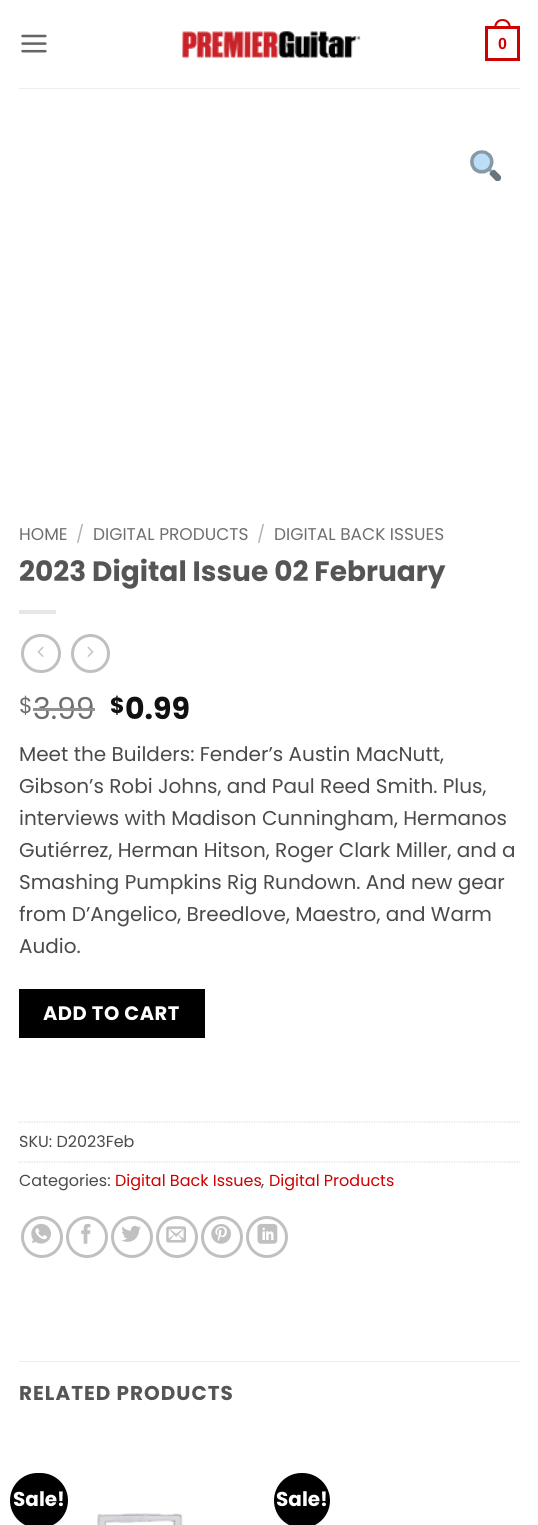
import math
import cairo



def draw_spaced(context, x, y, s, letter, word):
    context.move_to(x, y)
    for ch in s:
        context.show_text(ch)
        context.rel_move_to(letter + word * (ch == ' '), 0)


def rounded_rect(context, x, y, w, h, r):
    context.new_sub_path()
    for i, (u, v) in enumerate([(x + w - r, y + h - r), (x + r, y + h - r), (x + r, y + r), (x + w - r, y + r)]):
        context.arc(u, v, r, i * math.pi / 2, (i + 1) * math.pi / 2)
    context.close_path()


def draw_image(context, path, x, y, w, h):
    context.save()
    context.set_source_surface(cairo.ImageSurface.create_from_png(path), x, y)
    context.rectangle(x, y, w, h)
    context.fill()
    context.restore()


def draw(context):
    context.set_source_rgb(1, 1, 1)
    context.paint()
    draw_image(context, "images/1.png", 21, 34, 26, 19)
    draw_image(context, "images/2.png", 182, 31, 179, 27)
    context.rectangle(486.5, 27.5, 32, 32)
    context.set_source_rgb(206 / 255, 0, 0)
    context.set_line_width(3)
    context.stroke()
    context.set_fill_rule(cairo.FillRule.EVEN_ODD)
    context.new_path()
    context.move_to(502.5, 19)
    context.curve_to(508.5, 19, 511, 23.5, 511, 29)
    context.line_to(494, 29)
    context.curve_to(494, 23.5, 496.5, 19, 502.5, 19)
    context.close_path()
    context.move_to(502.5, 21)
    context.curve_to(507, 21, 509, 25, 509, 29)
    context.line_to(496, 29)
    context.curve_to(496, 25, 498, 21, 502.5, 21)
    context.close_path()
    context.fill()
    context.set_source_rgb(237 / 255, 237 / 255, 237 / 255)
    context.rectangle(19, 88, 501, 1)
    context.fill()
    draw_image(context, "images/3.png", 470, 150, 31, 31)
    context.set_source_rgb(230 / 255, 230 / 255, 230 / 255)
    context.rectangle(19, 610, 37, 4)
    context.fill()
    rounded_rect(context, 22.5, 635.5, 37, 36, 18)
    context.set_source_rgb(192 / 255, 192 / 255, 192 / 255)
    context.stroke()
    draw_image(context, "images/4.png", 37, 646, 7, 11)
    context.arc(90.5, 653.5, 18, 0, 2 * math.pi)
    context.stroke()
    draw_image(context, "images/5.png", 87, 646, 7, 11)
    context.set_source_rgb(0, 0, 0)
    context.rectangle(19, 989, 186, 49)
    context.fill()
    context.new_path()
    context.move_to(19, 1122)
    context.line_to(520, 1122)
    context.set_source_rgb(221 / 255, 221 / 255, 221 / 255)
    context.set_line_width(1.2)
    context.set_dash([1.25, 1.25])
    context.stroke()
    context.new_path()
    context.move_to(19, 1162)
    context.line_to(520, 1162)
    context.stroke()
    context.arc(42, 1237, 19.5, 0, 2 * math.pi)
    context.set_source_rgb(192 / 255, 192 / 255, 192 / 255)
    context.set_line_width(3)
    context.set_dash([])
    context.stroke()
    draw_image(context, "images/6.png", 31, 1223, 20, 21)
    context.arc(87, 1237, 19.5, 0, 2 * math.pi)
    context.stroke()
    draw_image(context, "images/7.png", 81, 1223, 10, 21)
    context.arc(132, 1237, 19.5, 0, 2 * math.pi)
    context.stroke()
    draw_image(context, "images/8.png", 121, 1225, 20, 17)
    context.arc(177, 1237, 19.5, 0, 2 * math.pi)
    context.stroke()
    draw_image(context, "images/9.png", 166, 1226, 20, 17)
    context.arc(222, 1237, 19.5, 0, 2 * math.pi)
    context.stroke()
    draw_image(context, "images/10.png", 211, 1224, 20, 20)
    context.arc(267, 1237, 19.5, 0, 2 * math.pi)
    context.stroke()
    draw_image(context, "images/11.png", 257, 1223, 21, 21)
    context.set_source_rgb(236 / 255, 236 / 255, 236 / 255)
    context.rectangle(19, 1361, 501, 1)
    context.fill()
    context.set_source_rgb(0, 0, 0)
    rounded_rect(context, 10, 1473, 58, 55, 27.5)
    context.fill()
    draw_image(context, "images/12.png", 97, 1513, 86, 12)
    rounded_rect(context, 274, 1473, 56, 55, 27.5)
    context.fill()
    context.select_font_face("Liberation Sans", cairo.FontSlant.NORMAL, cairo.FontWeight.BOLD)
    context.set_font_size(16)
    context.set_source_rgb(206 / 255, 0, 0)
    context.move_to(498, 49)
    context.show_text("0")
    context.select_font_face("Poppins")
    context.set_font_size(17)
    context.set_source_rgb(110 / 255, 110 / 255, 110 / 255)
    context.move_to(19, 540)
    context.show_text("HOME")
    context.set_source_rgb(178 / 255, 178 / 255, 178 / 255)
    context.move_to(76, 540)
    context.show_text("/")
    context.set_source_rgb(110 / 255, 110 / 255, 110 / 255)
    context.move_to(93, 540)
    context.show_text("DIGITAL PRODUCTS")
    context.set_source_rgb(178 / 255, 178 / 255, 178 / 255)
    context.move_to(257, 540)
    context.show_text("/")
    context.set_source_rgb(110 / 255, 110 / 255, 110 / 255)
    context.move_to(274, 540)
    context.show_text("DIGITAL BACK ISSUES")
    context.select_font_face("Poppins", cairo.FontSlant.NORMAL, cairo.FontWeight.BOLD)
    context.set_font_size(28)
    context.set_source_rgb(85 / 255, 85 / 255, 85 / 255)
    context.move_to(19, 581)
    context.show_text("2023 Digital Issue 02 February")
    context.select_font_face("Poppins")
    context.set_font_size(22)
    context.set_source_rgb(110 / 255, 110 / 255, 110 / 255)
    context.move_to(19, 713)
    context.show_text("$")
    context.set_font_size(30)
    context.move_to(33, 719)
    context.show_text("3.99")
    context.set_source_rgb(146 / 255, 146 / 255, 146 / 255)
    context.rectangle(33, 708, 62, 3)
    context.fill()
    context.select_font_face("Poppins", cairo.FontSlant.NORMAL, cairo.FontWeight.BOLD)
    context.set_font_size(22)
    context.set_source_rgb(17 / 255, 17 / 255, 17 / 255)
    context.move_to(110, 713)
    context.show_text("$")
    context.set_font_size(30)
    context.move_to(125, 719)
    context.show_text("0.99")
    context.select_font_face("Poppins")
    context.set_font_size(20)
    context.set_source_rgb(74 / 255, 74 / 255, 74 / 255)
    context.move_to(19, 761)
    context.show_text("Meet the Builders: Fender’s Austin MacNutt,")
    context.move_to(19, 793)
    context.show_text("Gibson’s Robi Johns, and Paul Reed Smith. Plus,")
    context.move_to(19, 825)
    context.show_text("interviews with Madison Cunningham, Hermanos")
    context.move_to(19, 857)
    context.show_text("Gutiérrez, Herman Hitson, Roger Clark Miller, and a")
    context.move_to(19, 889)
    context.show_text("Smashing Pumpkins Rig Rundown. And new gear")
    context.move_to(19, 921)
    context.show_text("from D’Angelico, Breedlove, Maestro, and Warm")
    context.move_to(19, 953)
    context.show_text("Audio.")
    context.select_font_face("Poppins", cairo.FontSlant.NORMAL, cairo.FontWeight.BOLD)
    context.set_font_size(19.5)
    context.set_source_rgb(1, 1, 1)
    draw_spaced(context, 43, 1020, "ADD TO CART", 0.5, 0)
    context.select_font_face("Poppins")
    context.set_font_size(16)
    context.set_source_rgb(74 / 255, 74 / 255, 74 / 255)
    context.move_to(19, 1147)
    context.show_text("SKU: D2023Feb")
    context.move_to(19, 1186)
    context.show_text("Categories:")
    context.set_source_rgb(206 / 255, 0, 0)
    context.move_to(115, 1186)
    context.show_text("Digital Back Issues")
    context.set_source_rgb(74 / 255, 74 / 255, 74 / 255)
    context.move_to(261, 1186)
    context.show_text(",")
    context.set_source_rgb(206 / 255, 0, 0)
    context.move_to(269, 1186)
    context.show_text("Digital Products")
    context.select_font_face("Poppins", cairo.FontSlant.NORMAL, cairo.FontWeight.BOLD)
    context.set_font_size(20)
    context.set_source_rgb(85 / 255, 85 / 255, 85 / 255)
    draw_spaced(context, 19, 1400, "RELATED PRODUCTS", 1, 0)
    context.set_source_rgb(1, 1, 1)
    context.move_to(13, 1506)
    context.show_text("Sale!")
    context.move_to(276, 1506)
    context.show_text("Sale!")


surface = cairo.ImageSurface(cairo.Format.RGB24, 538, 1525)
context = cairo.Context(surface)
options = cairo.FontOptions()
options.set_hint_metrics(cairo.HintMetrics.OFF)
options.set_hint_style(cairo.HintStyle.NONE)
context.set_font_options(options)
context.set_miter_limit(4)
draw(context)
surface.write_to_png("out.png")
